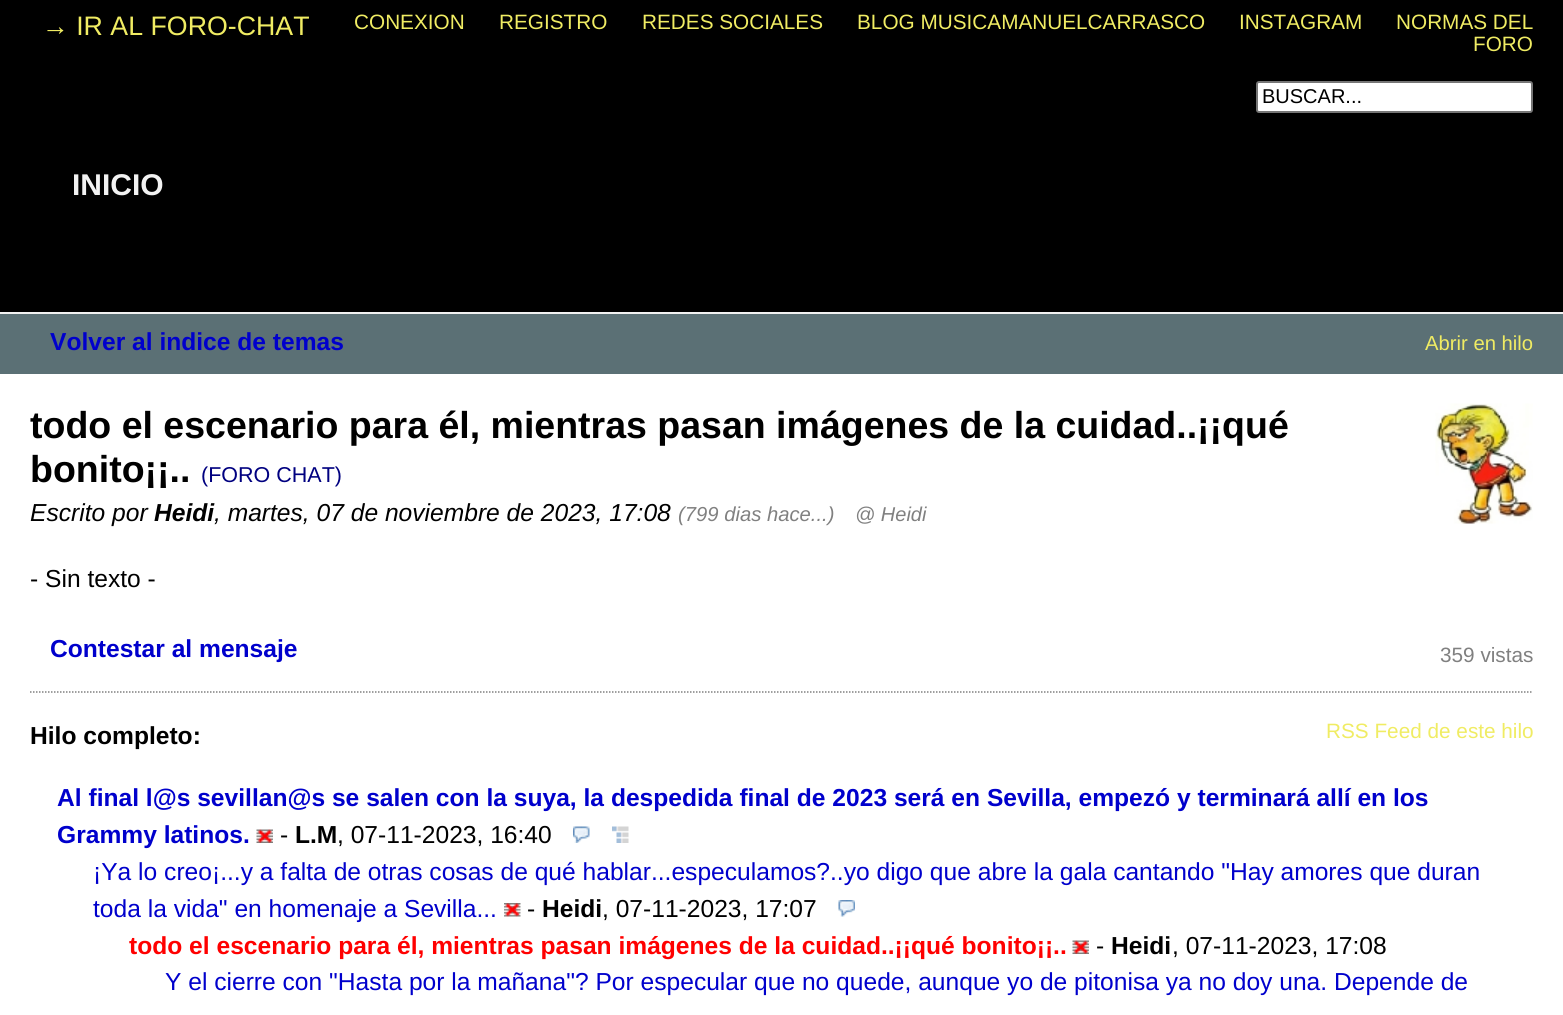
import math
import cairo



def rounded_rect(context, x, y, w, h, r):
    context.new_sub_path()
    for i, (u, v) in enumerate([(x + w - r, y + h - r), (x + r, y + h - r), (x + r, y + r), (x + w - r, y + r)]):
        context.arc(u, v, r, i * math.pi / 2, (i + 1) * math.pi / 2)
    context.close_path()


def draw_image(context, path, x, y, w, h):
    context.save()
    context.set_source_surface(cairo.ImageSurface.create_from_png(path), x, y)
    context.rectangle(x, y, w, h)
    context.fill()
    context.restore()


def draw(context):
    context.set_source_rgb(0, 0, 0)
    context.paint()
    context.set_source_rgb(1, 1, 1)
    rounded_rect(context, 1257, 82, 275, 30, 2)
    context.fill_preserve()
    context.set_source_rgb(118 / 255, 118 / 255, 118 / 255)
    context.stroke()
    context.set_source_rgb(91 / 255, 112 / 255, 117 / 255)
    context.rectangle(0, 314, 1563, 60)
    context.fill()
    context.set_source_rgb(242 / 255, 242 / 255, 242 / 255)
    context.rectangle(0, 312, 1563, 2)
    context.fill()
    context.set_source_rgb(1, 1, 1)
    context.rectangle(0, 374, 1563, 641)
    context.fill()
    draw_image(context, "images/1.png", 1435, 403, 98, 121)
    context.new_path()
    context.move_to(30, 692)
    context.line_to(1533, 692)
    context.set_source_rgb(128 / 255, 128 / 255, 128 / 255)
    context.set_line_width(1.5)
    context.set_dash([1.5, 1.5])
    context.stroke()
    draw_image(context, "images/2.png", 256, 829, 17, 14)
    draw_image(context, "images/3.png", 573, 826, 17, 17)
    draw_image(context, "images/4.png", 612, 826, 17, 17)
    draw_image(context, "images/5.png", 504, 903, 17, 14)
    draw_image(context, "images/6.png", 838, 900, 17, 17)
    draw_image(context, "images/2.png", 1072, 940, 17, 14)
    context.select_font_face("Liberation Sans")
    context.set_font_size(26.75)
    context.set_source_rgb(240 / 255, 236 / 255, 99 / 255)
    context.move_to(42, 35)
    context.show_text("→ IR AL FORO-CHAT")
    context.select_font_face("Liberation Sans", cairo.FontSlant.NORMAL, cairo.FontWeight.BOLD)
    context.set_font_size(30)
    context.set_source_rgb(242 / 255, 242 / 255, 242 / 255)
    context.move_to(72, 195)
    context.show_text("INICIO")
    context.select_font_face("Liberation Sans")
    context.set_font_size(20.75)
    context.set_source_rgb(240 / 255, 236 / 255, 99 / 255)
    context.move_to(354, 29)
    context.show_text("CONEXION")
    context.move_to(499, 29)
    context.show_text("REGISTRO")
    context.move_to(642, 29)
    context.show_text("REDES SOCIALES")
    context.move_to(857, 29)
    context.show_text("BLOG MUSICAMANUELCARRASCO")
    context.move_to(1239, 29)
    context.show_text("INSTAGRAM")
    context.move_to(1396, 29)
    context.show_text("NORMAS DEL")
    context.move_to(1473, 51)
    context.show_text("FORO")
    context.set_font_size(20)
    context.set_source_rgb(0, 0, 0)
    context.move_to(1262, 103)
    context.show_text("BUSCAR...")
    context.select_font_face("Liberation Sans", cairo.FontSlant.NORMAL, cairo.FontWeight.BOLD)
    context.set_font_size(24.6)
    context.set_source_rgb(0, 0, 204 / 255)
    context.move_to(50, 350)
    context.show_text("Volver al indice de temas")
    context.select_font_face("Liberation Sans")
    context.set_font_size(20.25)
    context.set_source_rgb(240 / 255, 236 / 255, 99 / 255)
    context.move_to(1425, 350)
    context.show_text("Abrir en hilo")
    context.select_font_face("Liberation Sans", cairo.FontSlant.NORMAL, cairo.FontWeight.BOLD)
    context.set_font_size(37.5)
    context.set_source_rgb(0, 0, 0)
    context.move_to(30, 438)
    context.show_text("todo el escenario para él, mientras pasan imágenes de la cuidad..¡¡qué")
    context.move_to(30, 482)
    context.show_text("bonito¡¡..")
    context.select_font_face("Liberation Sans")
    context.set_font_size(21.5)
    context.set_source_rgb(0, 0, 128 / 255)
    context.move_to(201, 482)
    context.show_text("(FORO CHAT)")
    context.select_font_face("Liberation Sans", cairo.FontSlant.ITALIC)
    context.set_font_size(24.6)
    context.set_source_rgb(0, 0, 0)
    context.move_to(30, 521)
    context.show_text("Escrito por")
    context.select_font_face("Liberation Sans", cairo.FontSlant.ITALIC, cairo.FontWeight.BOLD)
    context.move_to(154, 521)
    context.show_text("Heidi")
    context.select_font_face("Liberation Sans", cairo.FontSlant.ITALIC)
    context.move_to(214, 521)
    context.show_text(", martes, 07 de noviembre de 2023, 17:08")
    context.set_font_size(20.25)
    context.set_source_rgb(128 / 255, 128 / 255, 128 / 255)
    context.move_to(678, 521)
    context.show_text("(799 dias hace...)")
    context.set_font_size(20)
    context.move_to(855, 521)
    context.show_text("@ Heidi")
    context.select_font_face("Liberation Sans")
    context.set_font_size(24.6)
    context.set_source_rgb(0, 0, 0)
    context.move_to(30, 587)
    context.show_text("- Sin texto -")
    context.select_font_face("Liberation Sans", cairo.FontSlant.NORMAL, cairo.FontWeight.BOLD)
    context.set_source_rgb(0, 0, 204 / 255)
    context.move_to(50, 657)
    context.show_text("Contestar al mensaje")
    context.select_font_face("Liberation Sans")
    context.set_font_size(20.75)
    context.set_source_rgb(128 / 255, 128 / 255, 128 / 255)
    context.move_to(1440, 662)
    context.show_text("359 vistas")
    context.select_font_face("Liberation Sans", cairo.FontSlant.NORMAL, cairo.FontWeight.BOLD)
    context.set_font_size(24.6)
    context.set_source_rgb(0, 0, 0)
    context.move_to(30, 744)
    context.show_text("Hilo completo:")
    context.select_font_face("Liberation Sans")
    context.set_font_size(20.75)
    context.set_source_rgb(240 / 255, 236 / 255, 99 / 255)
    context.move_to(1326, 738)
    context.show_text("RSS Feed de este hilo")
    context.select_font_face("Liberation Sans", cairo.FontSlant.NORMAL, cairo.FontWeight.BOLD)
    context.set_font_size(24.6)
    context.set_source_rgb(0, 0, 204 / 255)
    context.move_to(57, 806)
    context.show_text("Al final l@s sevillan@s se salen con la suya, la despedida final de 2023 será en Sevilla, empezó y terminará allí en los")
    context.move_to(57, 843)
    context.show_text("Grammy latinos.")
    context.select_font_face("Liberation Sans")
    context.set_source_rgb(0, 0, 0)
    context.move_to(280, 843)
    context.show_text("-")
    context.select_font_face("Liberation Sans", cairo.FontSlant.NORMAL, cairo.FontWeight.BOLD)
    context.move_to(295, 843)
    context.show_text("L.M")
    context.select_font_face("Liberation Sans")
    context.move_to(337, 843)
    context.show_text(", 07-11-2023, 16:40")
    context.set_source_rgb(0, 0, 204 / 255)
    context.move_to(93, 880)
    context.show_text("¡Ya lo creo¡...y a falta de otras cosas de qué hablar...especulamos?..yo digo que abre la gala cantando \"Hay amores que duran")
    context.move_to(93, 917)
    context.show_text("toda la vida\" en homenaje a Sevilla...")
    context.set_source_rgb(0, 0, 0)
    context.move_to(527, 917)
    context.show_text("-")
    context.select_font_face("Liberation Sans", cairo.FontSlant.NORMAL, cairo.FontWeight.BOLD)
    context.move_to(542, 917)
    context.show_text("Heidi")
    context.select_font_face("Liberation Sans")
    context.move_to(602, 917)
    context.show_text(", 07-11-2023, 17:07")
    context.select_font_face("Liberation Sans", cairo.FontSlant.NORMAL, cairo.FontWeight.BOLD)
    context.set_source_rgb(1, 0, 0)
    context.move_to(129, 954)
    context.show_text("todo el escenario para él, mientras pasan imágenes de la cuidad..¡¡qué bonito¡¡..")
    context.select_font_face("Liberation Sans")
    context.set_source_rgb(0, 0, 0)
    context.move_to(1096, 954)
    context.show_text("-")
    context.select_font_face("Liberation Sans", cairo.FontSlant.NORMAL, cairo.FontWeight.BOLD)
    context.move_to(1111, 954)
    context.show_text("Heidi")
    context.select_font_face("Liberation Sans")
    context.move_to(1172, 954)
    context.show_text(", 07-11-2023, 17:08")
    context.set_source_rgb(0, 0, 204 / 255)
    context.move_to(165, 990)
    context.show_text("Y el cierre con \"Hasta por la mañana\"? Por especular que no quede, aunque yo de pitonisa ya no doy una. Depende de")


surface = cairo.ImageSurface(cairo.Format.RGB24, 1563, 1015)
context = cairo.Context(surface)
options = cairo.FontOptions()
options.set_hint_metrics(cairo.HintMetrics.OFF)
options.set_hint_style(cairo.HintStyle.NONE)
context.set_font_options(options)
context.set_miter_limit(4)
draw(context)
surface.write_to_png("out.png")
